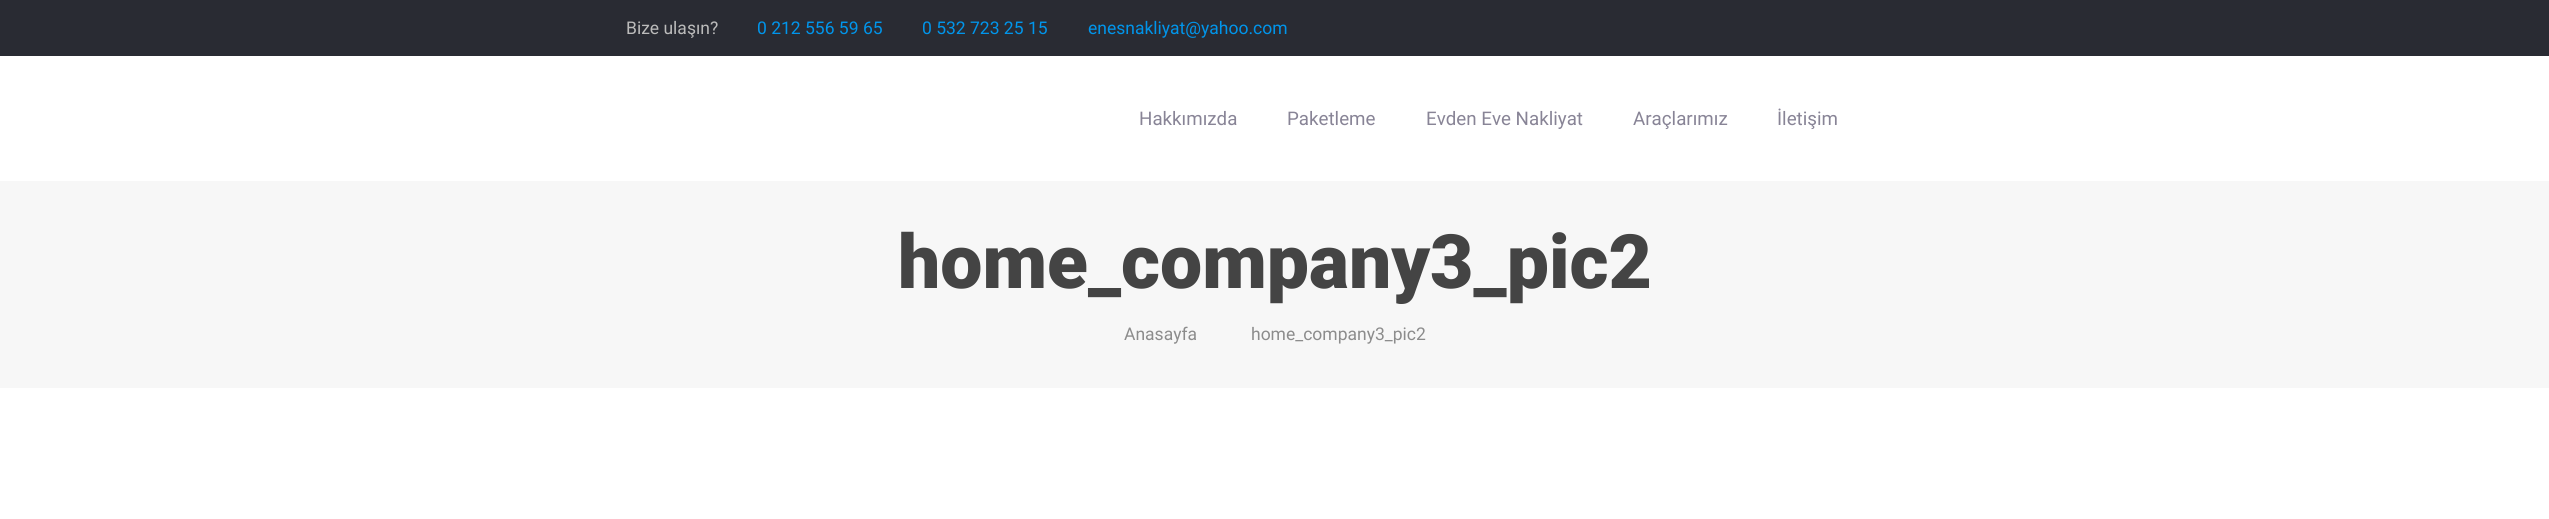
import math
import cairo



def draw(context):
    context.set_source_rgb(1, 1, 1)
    context.paint()
    context.set_source_rgb(41 / 255, 43 / 255, 51 / 255)
    context.rectangle(0, 0, 2549, 56)
    context.fill()
    context.set_source_rgb(247 / 255, 247 / 255, 247 / 255)
    context.rectangle(0, 181, 2549, 207)
    context.fill()
    context.select_font_face("Roboto")
    context.set_font_size(17.5)
    context.set_source_rgb(187 / 255, 187 / 255, 187 / 255)
    context.move_to(626, 34)
    context.show_text("Bize ulaşın?")
    context.set_source_rgb(0, 149 / 255, 235 / 255)
    context.move_to(757, 34)
    context.show_text("0 212 556 59 65")
    context.move_to(922, 34)
    context.show_text("0 532 723 25 15")
    context.move_to(1088, 34)
    context.show_text("enesnakliyat@yahoo.com")
    context.set_font_size(18.75)
    context.set_source_rgb(136 / 255, 132 / 255, 150 / 255)
    context.move_to(1139, 125)
    context.show_text("Hakkımızda")
    context.move_to(1287, 125)
    context.show_text("Paketleme")
    context.move_to(1426, 125)
    context.show_text("Evden Eve Nakliyat")
    context.move_to(1633, 125)
    context.show_text("Araçlarımız")
    context.move_to(1777, 125)
    context.show_text("İletişim")
    context.select_font_face("Roboto Black")
    context.set_font_size(75)
    context.set_source_rgb(68 / 255, 68 / 255, 68 / 255)
    context.move_to(898, 288)
    context.show_text("home_company3_pic2")
    context.select_font_face("Roboto")
    context.set_font_size(17.5)
    context.set_source_rgb(140 / 255, 140 / 255, 140 / 255)
    context.move_to(1124, 340)
    context.show_text("Anasayfa")
    context.move_to(1251, 340)
    context.show_text("home_company3_pic2")


surface = cairo.ImageSurface(cairo.Format.RGB24, 2549, 519)
context = cairo.Context(surface)
options = cairo.FontOptions()
options.set_hint_metrics(cairo.HintMetrics.OFF)
options.set_hint_style(cairo.HintStyle.NONE)
context.set_font_options(options)
context.set_miter_limit(4)
draw(context)
surface.write_to_png("out.png")
